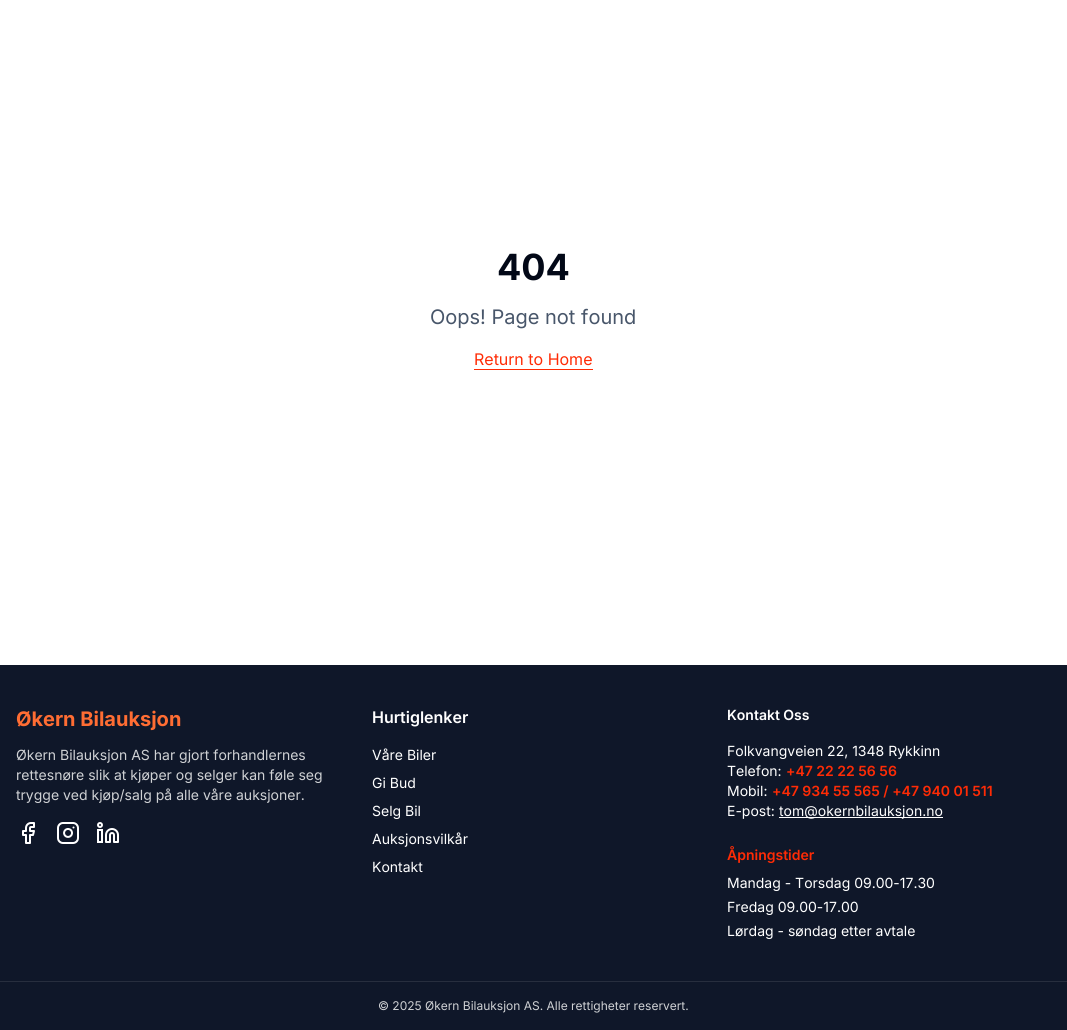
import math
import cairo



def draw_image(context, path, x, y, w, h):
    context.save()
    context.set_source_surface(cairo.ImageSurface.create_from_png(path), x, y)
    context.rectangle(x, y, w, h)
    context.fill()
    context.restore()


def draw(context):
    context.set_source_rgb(1, 1, 1)
    context.paint()
    context.set_source_rgb(1, 43 / 255, 5 / 255)
    context.rectangle(474, 369, 119, 1)
    context.fill()
    context.set_source_rgb(15 / 255, 23 / 255, 41 / 255)
    context.rectangle(0, 665, 1067, 365)
    context.fill()
    draw_image(context, "images/1.png", 22, 822, 13, 22)
    draw_image(context, "images/2.png", 57, 822, 22, 22)
    draw_image(context, "images/3.png", 97, 822, 22, 21)
    context.set_source_rgb(1, 1, 1)
    context.rectangle(779, 817, 164, 1)
    context.fill()
    context.set_source_rgb(39 / 255, 46 / 255, 62 / 255)
    context.rectangle(0, 981, 1067, 1)
    context.fill()
    context.select_font_face("Inter", cairo.FontSlant.NORMAL, cairo.FontWeight.BOLD)
    context.set_font_size(36)
    context.set_source_rgb(2 / 255, 8 / 255, 23 / 255)
    context.move_to(497, 280)
    context.show_text("404")
    context.select_font_face("Inter")
    context.set_font_size(20)
    context.set_source_rgb(72 / 255, 86 / 255, 106 / 255)
    context.move_to(430, 324)
    context.show_text("Oops! Page not found")
    context.set_font_size(16)
    context.set_source_rgb(1, 43 / 255, 5 / 255)
    context.move_to(474, 365)
    context.show_text("Return to Home")
    context.select_font_face("Inter", cairo.FontSlant.NORMAL, cairo.FontWeight.BOLD)
    context.set_font_size(20)
    context.set_source_rgb(1, 109 / 255, 51 / 255)
    context.move_to(16, 726)
    context.show_text("Økern Bilauksjon")
    context.select_font_face("Inter")
    context.set_font_size(14)
    context.set_source_rgb(207 / 255, 209 / 255, 212 / 255)
    context.move_to(16, 760)
    context.show_text("Økern Bilauksjon AS har gjort forhandlernes")
    context.move_to(16, 780)
    context.show_text("rettesnøre slik at kjøper og selger kan føle seg")
    context.move_to(16, 800)
    context.show_text("trygge ved kjøp/salg på alle våre auksjoner.")
    context.select_font_face("Inter SemiBold")
    context.set_font_size(16)
    context.set_source_rgb(1, 1, 1)
    context.move_to(372, 723)
    context.show_text("Hurtiglenker")
    context.select_font_face("Inter")
    context.set_font_size(14)
    context.move_to(372, 760)
    context.show_text("Våre Biler")
    context.move_to(372, 788)
    context.show_text("Gi Bud")
    context.move_to(372, 816)
    context.show_text("Selg Bil")
    context.move_to(372, 844)
    context.show_text("Auksjonsvilkår")
    context.move_to(372, 872)
    context.show_text("Kontakt")
    context.select_font_face("Inter SemiBold")
    context.move_to(727, 720)
    context.show_text("Kontakt Oss")
    context.select_font_face("Inter")
    context.move_to(727, 756)
    context.show_text("Folkvangveien 22, 1348 Rykkinn")
    context.move_to(727, 776)
    context.show_text("Telefon:")
    context.select_font_face("Inter SemiBold")
    context.set_source_rgb(1, 43 / 255, 5 / 255)
    context.move_to(786, 776)
    context.show_text("+47 22 22 56 56")
    context.select_font_face("Inter")
    context.set_source_rgb(1, 1, 1)
    context.move_to(727, 796)
    context.show_text("Mobil:")
    context.select_font_face("Inter SemiBold")
    context.set_source_rgb(1, 43 / 255, 5 / 255)
    context.move_to(772, 796)
    context.show_text("+47 934 55 565 / +47 940 01 511")
    context.select_font_face("Inter")
    context.set_source_rgb(1, 1, 1)
    context.move_to(727, 816)
    context.show_text("E-post:")
    context.move_to(779, 816)
    context.show_text("tom@okernbilauksjon.no")
    context.select_font_face("Inter SemiBold")
    context.set_source_rgb(1, 43 / 255, 5 / 255)
    context.move_to(727, 860)
    context.show_text("Åpningstider")
    context.select_font_face("Inter")
    context.set_source_rgb(1, 1, 1)
    context.move_to(727, 888)
    context.show_text("Mandag - Torsdag 09.00-17.30")
    context.move_to(727, 912)
    context.show_text("Fredag 09.00-17.00")
    context.move_to(727, 936)
    context.show_text("Lørdag - søndag etter avtale")
    context.set_font_size(12)
    context.set_source_rgb(207 / 255, 209 / 255, 212 / 255)
    context.move_to(378, 1010)
    context.show_text("© 2025 Økern Bilauksjon AS. Alle rettigheter reservert.")


surface = cairo.ImageSurface(cairo.Format.RGB24, 1067, 1030)
context = cairo.Context(surface)
options = cairo.FontOptions()
options.set_hint_metrics(cairo.HintMetrics.OFF)
options.set_hint_style(cairo.HintStyle.NONE)
context.set_font_options(options)
context.set_miter_limit(4)
draw(context)
surface.write_to_png("out.png")
